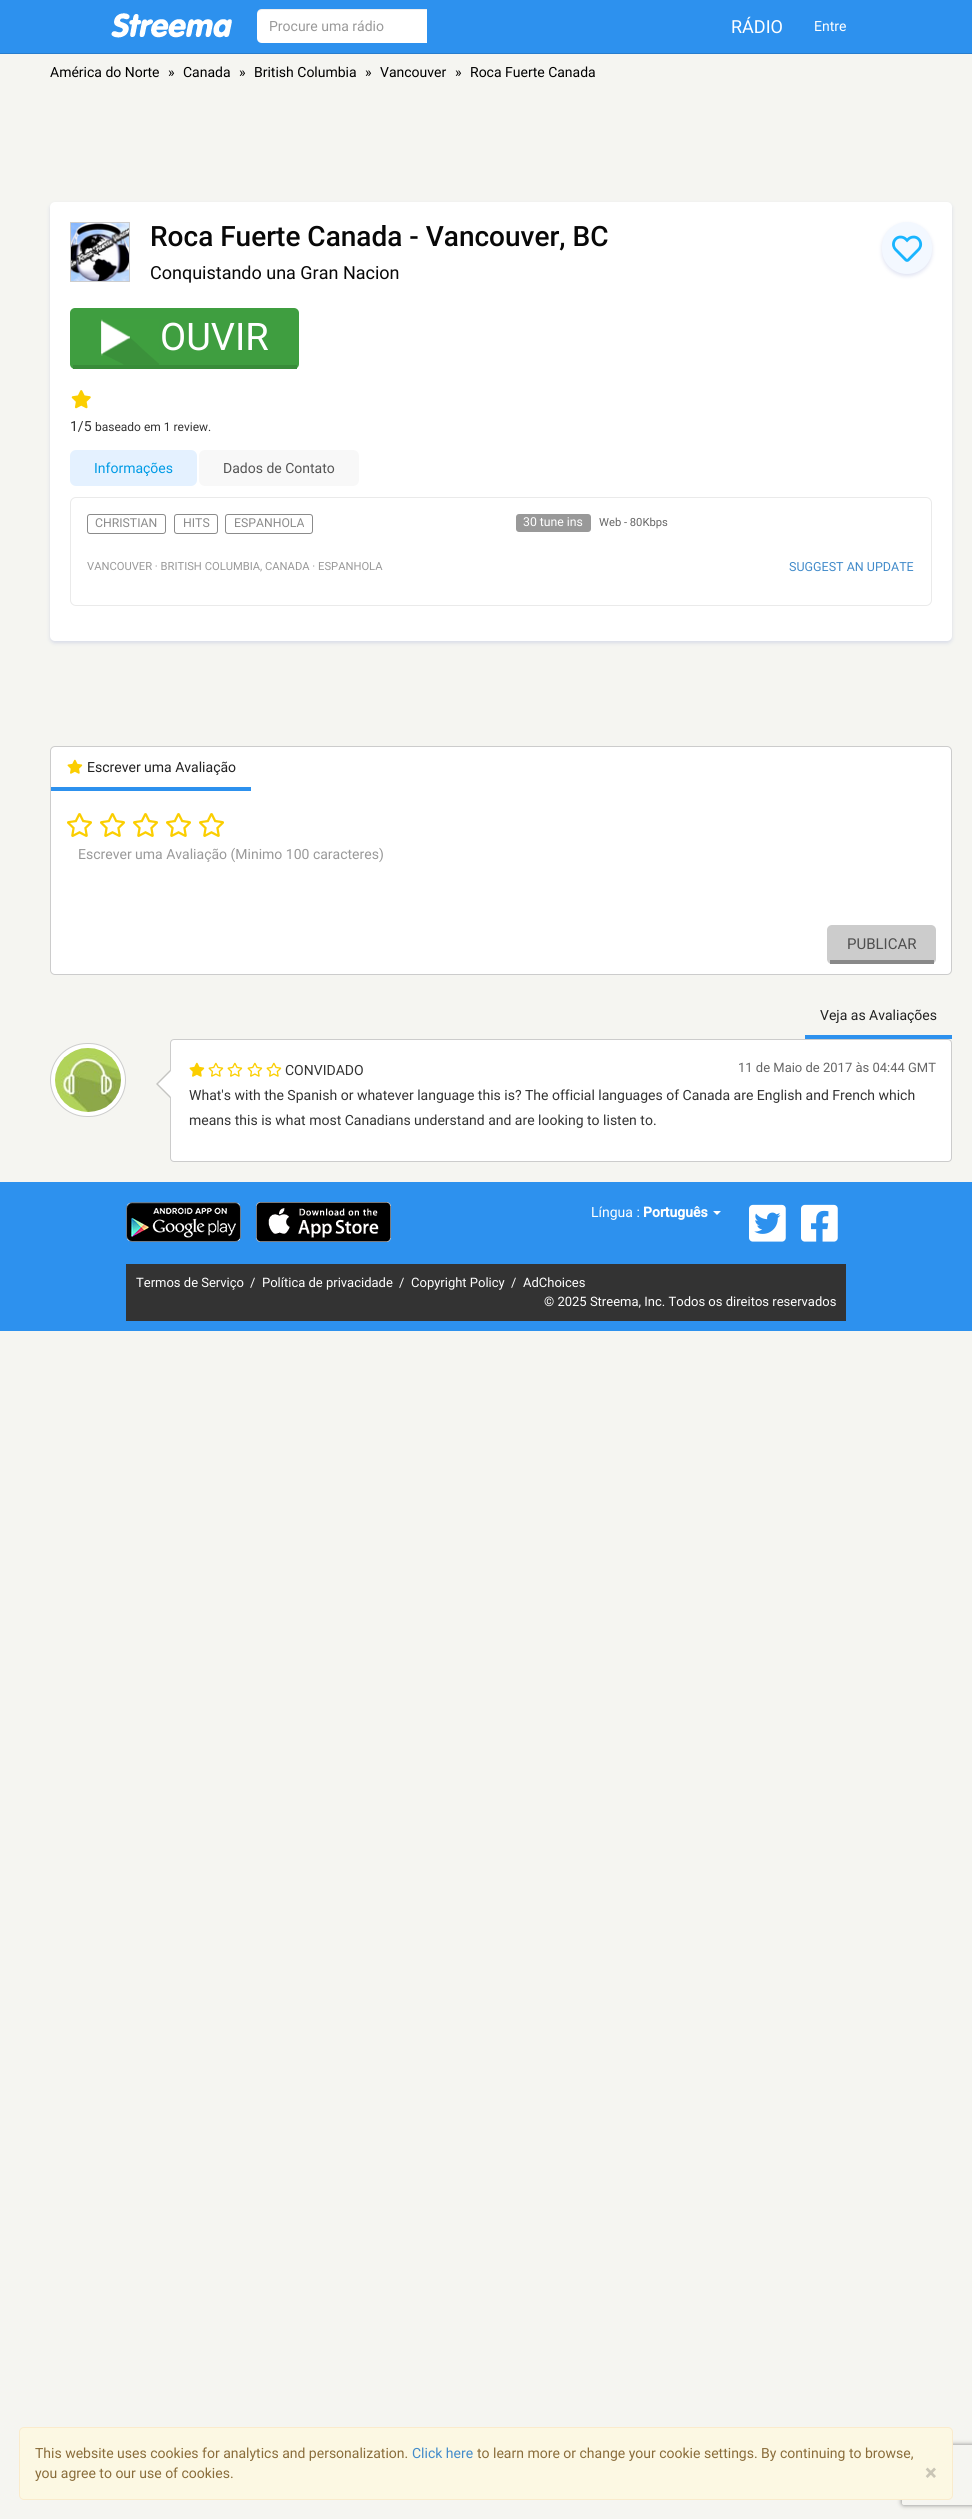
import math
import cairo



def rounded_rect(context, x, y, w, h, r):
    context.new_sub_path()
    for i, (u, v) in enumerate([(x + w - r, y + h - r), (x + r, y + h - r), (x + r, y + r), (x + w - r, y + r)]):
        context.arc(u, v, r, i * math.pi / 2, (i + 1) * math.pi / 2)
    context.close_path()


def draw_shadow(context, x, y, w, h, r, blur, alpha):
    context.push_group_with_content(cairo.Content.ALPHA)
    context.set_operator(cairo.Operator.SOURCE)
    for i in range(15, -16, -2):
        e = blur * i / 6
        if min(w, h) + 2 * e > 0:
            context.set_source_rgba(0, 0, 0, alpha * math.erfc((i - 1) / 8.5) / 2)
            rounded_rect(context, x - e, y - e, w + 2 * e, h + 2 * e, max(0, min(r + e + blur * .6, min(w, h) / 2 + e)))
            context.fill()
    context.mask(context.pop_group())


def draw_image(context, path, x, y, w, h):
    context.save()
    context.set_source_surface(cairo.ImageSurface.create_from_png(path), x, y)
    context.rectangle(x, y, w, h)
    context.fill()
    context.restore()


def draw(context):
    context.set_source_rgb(245 / 255, 245 / 255, 241 / 255)
    context.paint()
    context.set_source_rgb(45 / 255, 145 / 255, 238 / 255)
    context.rectangle(0, 0, 972, 53)
    context.fill()
    context.set_source_rgb(39 / 255, 125 / 255, 205 / 255)
    context.rectangle(0, 53, 972, 1)
    context.fill()
    draw_image(context, "images/1.png", 111, 13, 121, 25)
    context.set_source_rgb(1, 1, 1)
    context.new_path()
    context.move_to(262, 9)
    context.line_to(427, 9)
    context.line_to(427, 43)
    context.line_to(262, 43)
    context.curve_to(259, 43, 257, 41, 257, 38)
    context.line_to(257, 14)
    context.curve_to(257, 11, 259, 9, 262, 9)
    context.close_path()
    context.fill()
    context.set_source_rgba(0, 0, 0, 0.07)
    context.new_path()
    context.move_to(262, 10)
    context.line_to(427, 10)
    context.line_to(427, 9)
    context.line_to(262, 9)
    context.curve_to(259, 9, 257, 11, 257, 14)
    context.line_to(257, 15)
    context.curve_to(257, 12, 259, 10, 262, 10)
    context.close_path()
    context.fill()
    context.set_source_rgb(127 / 255, 139 / 255, 201 / 255)
    draw_shadow(context, 50, 204, 902, 439, 5, 2, 0.25)
    context.set_source_rgb(1, 1, 1)
    rounded_rect(context, 50, 202, 902, 439, 5)
    context.fill()
    context.rectangle(70.5, 222.5, 59, 59)
    context.set_source_rgb(204 / 255, 204 / 255, 204 / 255)
    context.set_line_width(1)
    context.stroke()
    draw_image(context, "images/2.png", 71, 223, 58, 58)
    context.set_source_rgb(127 / 255, 139 / 255, 201 / 255)
    draw_shadow(context, 882, 224, 50, 52, 25, 2, 0.25)
    context.set_source_rgb(243 / 255, 248 / 255, 1)
    rounded_rect(context, 882, 222, 50, 52, 25)
    context.fill()
    draw_image(context, "images/3.png", 892, 235, 31, 27)
    context.set_source_rgb(63 / 255, 158 / 255, 64 / 255)
    rounded_rect(context, 70, 308, 229, 61, 5)
    context.fill()
    context.set_source_rgb(56 / 255, 140 / 255, 57 / 255)
    context.rectangle(73, 365, 224, 4)
    context.fill()
    draw_image(context, "images/4.png", 101, 319, 58, 46)
    draw_image(context, "images/5.png", 71, 390, 20, 19)
    context.set_source_rgb(228 / 255, 241 / 255, 1)
    rounded_rect(context, 70, 450, 127, 36, 6)
    context.fill()
    context.set_source_rgb(248 / 255, 248 / 255, 248 / 255)
    rounded_rect(context, 199, 450, 160, 36, 6)
    context.fill()
    rounded_rect(context, 70.5, 497.5, 861, 108, 5.5)
    context.set_source_rgb(234 / 255, 234 / 255, 234 / 255)
    context.stroke()
    rounded_rect(context, 87.5, 514.5, 78, 19, 2.5)
    context.set_source_rgb(139 / 255, 139 / 255, 139 / 255)
    context.stroke()
    rounded_rect(context, 174.5, 514.5, 43, 19, 2.5)
    context.stroke()
    rounded_rect(context, 225.5, 514.5, 87, 19, 2.5)
    context.stroke()
    context.set_source_rgb(153 / 255, 153 / 255, 153 / 255)
    rounded_rect(context, 516, 514, 75, 18, 3)
    context.fill()
    context.set_source_rgb(1, 1, 1)
    rounded_rect(context, 50.5, 746.5, 901, 228, 4.5)
    context.fill_preserve()
    context.set_source_rgb(204 / 255, 204 / 255, 204 / 255)
    context.stroke()
    context.set_source_rgb(45 / 255, 145 / 255, 238 / 255)
    context.rectangle(51, 787, 200, 4)
    context.fill()
    draw_image(context, "images/6.png", 67, 759, 16, 15)
    draw_image(context, "images/7.png", 67, 813, 25, 24)
    draw_image(context, "images/7.png", 100, 813, 25, 24)
    draw_image(context, "images/7.png", 133, 813, 25, 24)
    draw_image(context, "images/7.png", 166, 813, 25, 24)
    draw_image(context, "images/7.png", 199, 813, 25, 24)
    context.set_source_rgb(204 / 255, 204 / 255, 204 / 255)
    rounded_rect(context, 827, 925, 109, 39, 5)
    context.fill()
    context.set_source_rgb(137 / 255, 137 / 255, 137 / 255)
    context.rectangle(830, 960, 104, 4)
    context.fill()
    context.save()
    context.set_fill_rule(cairo.FillRule.EVEN_ODD)
    context.new_path()
    context.move_to(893, 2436)
    context.line_to(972, 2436)
    context.line_to(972, 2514)
    context.line_to(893, 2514)
    context.close_path()
    context.move_to(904, 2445)
    context.line_to(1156, 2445)
    context.curve_to(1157, 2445, 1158, 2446, 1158, 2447)
    context.line_to(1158, 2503)
    context.curve_to(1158, 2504, 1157, 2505, 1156, 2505)
    context.line_to(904, 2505)
    context.curve_to(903, 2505, 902, 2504, 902, 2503)
    context.line_to(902, 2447)
    context.curve_to(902, 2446, 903, 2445, 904, 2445)
    context.close_path()
    context.clip()
    context.set_source_rgb(128 / 255, 128 / 255, 128 / 255)
    draw_shadow(context, 902, 2445, 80, 60, 2, 2.5, 1)
    context.restore()
    context.set_source_rgb(45 / 255, 145 / 255, 238 / 255)
    context.rectangle(805, 1035, 147, 4)
    context.fill()
    context.set_source_rgb(1, 1, 1)
    rounded_rect(context, 50.5, 1043.5, 75, 73, 36.5)
    context.fill_preserve()
    context.set_source_rgb(204 / 255, 204 / 255, 204 / 255)
    context.stroke()
    draw_image(context, "images/8.png", 55, 1048, 66, 64)
    context.set_source_rgb(1, 1, 1)
    rounded_rect(context, 170.5, 1039.5, 781, 122, 3.5)
    context.fill_preserve()
    context.set_source_rgb(204 / 255, 204 / 255, 204 / 255)
    context.stroke()
    context.set_source_rgb(196 / 255, 196 / 255, 193 / 255)
    context.new_path()
    context.move_to(170, 1070)
    context.line_to(170, 1098)
    context.line_to(156, 1084)
    context.close_path()
    context.fill()
    draw_image(context, "images/6.png", 189, 1062, 16, 15)
    draw_image(context, "images/9.png", 208, 1062, 16, 15)
    draw_image(context, "images/9.png", 227, 1062, 16, 15)
    draw_image(context, "images/9.png", 247, 1062, 16, 15)
    draw_image(context, "images/9.png", 266, 1062, 16, 15)
    context.set_source_rgb(1, 1, 1)
    context.new_path()
    context.move_to(171, 1071)
    context.line_to(171, 1097)
    context.line_to(158, 1084)
    context.close_path()
    context.fill()
    context.set_source_rgb(45 / 255, 145 / 255, 238 / 255)
    context.rectangle(0, 1182, 972, 149)
    context.fill()
    draw_image(context, "images/10.png", 126, 1202, 115, 40)
    draw_image(context, "images/11.png", 256, 1202, 135, 40)
    context.set_source_rgb(1, 1, 1)
    context.new_path()
    context.move_to(713, 1211)
    context.line_to(721, 1211)
    context.line_to(717, 1215)
    context.close_path()
    context.fill()
    draw_image(context, "images/12.png", 749, 1204, 37, 38)
    draw_image(context, "images/13.png", 801, 1204, 37, 38)
    context.set_source_rgb(51 / 255, 51 / 255, 51 / 255)
    context.rectangle(126, 1264, 720, 57)
    context.fill()
    context.set_source_rgb(252 / 255, 248 / 255, 227 / 255)
    rounded_rect(context, 19.5, 2427.5, 933, 72, 4.5)
    context.fill_preserve()
    context.set_source_rgb(250 / 255, 235 / 255, 204 / 255)
    context.stroke()
    context.select_font_face("Roboto")
    context.set_font_size(14)
    context.set_source_rgb(153 / 255, 153 / 255, 153 / 255)
    context.move_to(269, 31)
    context.show_text("Procure uma rádio")
    context.set_font_size(18)
    context.set_source_rgb(1, 1, 1)
    context.move_to(731, 33)
    context.show_text("RÁDIO")
    context.set_font_size(14)
    context.move_to(814, 31)
    context.show_text("Entre")
    context.set_source_rgb(0, 0, 0)
    context.move_to(50, 77)
    context.show_text("América do Norte")
    context.move_to(168, 77)
    context.show_text("»")
    context.move_to(183, 77)
    context.show_text("Canada")
    context.move_to(239, 77)
    context.show_text("»")
    context.move_to(254, 77)
    context.show_text("British Columbia")
    context.move_to(365, 77)
    context.show_text("»")
    context.move_to(380, 77)
    context.show_text("Vancouver")
    context.move_to(455, 77)
    context.show_text("»")
    context.move_to(470, 77)
    context.show_text("Roca Fuerte Canada")
    context.select_font_face("Roboto Medium")
    context.set_font_size(28)
    context.set_source_rgb(8 / 255, 8 / 255, 8 / 255)
    context.move_to(150, 246)
    context.show_text("Roca Fuerte Canada - Vancouver, BC")
    context.select_font_face("Roboto")
    context.set_font_size(18)
    context.move_to(150, 279)
    context.show_text("Conquistando una Gran Nacion")
    context.set_font_size(38)
    context.set_source_rgb(1, 1, 1)
    context.move_to(160, 350)
    context.show_text("OUVIR")
    context.set_font_size(14)
    context.set_source_rgb(51 / 255, 51 / 255, 51 / 255)
    context.move_to(70, 431)
    context.show_text("1/5")
    context.set_font_size(12)
    context.move_to(95, 431)
    context.show_text("baseado em 1 review.")
    context.set_font_size(14)
    context.set_source_rgb(0, 155 / 255, 229 / 255)
    context.move_to(94, 473)
    context.show_text("Informações")
    context.set_source_rgb(85 / 255, 85 / 255, 85 / 255)
    context.move_to(223, 473)
    context.show_text("Dados de Contato")
    context.set_font_size(12.25)
    context.set_source_rgb(139 / 255, 139 / 255, 139 / 255)
    context.move_to(95, 527)
    context.show_text("CHRISTIAN")
    context.move_to(183, 527)
    context.show_text("HITS")
    context.move_to(234, 527)
    context.show_text("ESPANHOLA")
    context.set_source_rgb(1, 1, 1)
    context.move_to(523, 526)
    context.show_text("30 tune ins")
    context.set_font_size(11.2)
    context.set_source_rgb(102 / 255, 102 / 255, 102 / 255)
    context.move_to(599, 526)
    context.show_text("Web - 80Kbps")
    context.set_source_rgb(153 / 255, 153 / 255, 153 / 255)
    context.move_to(87, 570)
    context.show_text("VANCOUVER · BRITISH COLUMBIA, CANADA · ESPANHOLA")
    context.set_font_size(12.5)
    context.set_source_rgb(66 / 255, 139 / 255, 202 / 255)
    context.move_to(789, 571)
    context.show_text("SUGGEST AN UPDATE")
    context.set_font_size(14)
    context.set_source_rgb(34 / 255, 34 / 255, 34 / 255)
    context.move_to(87, 772)
    context.show_text("Escrever uma Avaliação")
    context.set_source_rgb(153 / 255, 153 / 255, 153 / 255)
    context.move_to(78, 859)
    context.show_text("Escrever uma Avaliação (Minimo 100 caracteres)")
    context.set_font_size(15)
    context.set_source_rgb(79 / 255, 79 / 255, 79 / 255)
    context.move_to(847, 949)
    context.show_text("PUBLICAR")
    context.set_font_size(14)
    context.set_source_rgb(34 / 255, 34 / 255, 34 / 255)
    context.move_to(820, 1020)
    context.show_text("Veja as Avaliações")
    context.set_source_rgb(51 / 255, 51 / 255, 51 / 255)
    context.move_to(285, 1075)
    context.show_text("CONVIDADO")
    context.set_font_size(13)
    context.set_source_rgb(102 / 255, 102 / 255, 102 / 255)
    context.move_to(738, 1072)
    context.show_text("11 de Maio de 2017 às 04:44 GMT")
    context.set_font_size(14)
    context.set_source_rgb(51 / 255, 51 / 255, 51 / 255)
    context.move_to(189, 1100)
    context.show_text("What's with the Spanish or whatever language this is? The official languages of Canada are English and French which")
    context.move_to(189, 1125)
    context.show_text("means this is what most Canadians understand and are looking to listen to.")
    context.set_source_rgb(1, 1, 1)
    context.move_to(591, 1217)
    context.show_text("Língua :")
    context.select_font_face("Roboto", cairo.FontSlant.NORMAL, cairo.FontWeight.BOLD)
    context.move_to(643, 1217)
    context.show_text("Português")
    context.select_font_face("Roboto")
    context.set_font_size(13)
    context.move_to(136, 1287)
    context.show_text("Termos de Serviço")
    context.move_to(250, 1287)
    context.show_text("/")
    context.move_to(262, 1287)
    context.show_text("Política de privacidade")
    context.move_to(399, 1287)
    context.show_text("/")
    context.move_to(411, 1287)
    context.show_text("Copyright Policy")
    context.move_to(511, 1287)
    context.show_text("/")
    context.move_to(523, 1287)
    context.show_text("AdChoices")
    context.move_to(544, 1306)
    context.show_text("© 2025 Streema, Inc. Todos os direitos reservados")
    context.set_font_size(14)
    context.set_source_rgb(138 / 255, 109 / 255, 59 / 255)
    context.move_to(35, 2458)
    context.show_text("This website uses cookies for analytics and personalization.")
    context.set_source_rgb(66 / 255, 139 / 255, 202 / 255)
    context.move_to(412, 2458)
    context.show_text("Click here")
    context.set_source_rgb(138 / 255, 109 / 255, 59 / 255)
    context.move_to(477, 2458)
    context.show_text("to learn more or change your cookie settings. By continuing to browse,")
    context.move_to(35, 2478)
    context.show_text("you agree to our use of cookies.")
    context.select_font_face("Roboto", cairo.FontSlant.NORMAL, cairo.FontWeight.BOLD)
    context.set_font_size(21)
    context.set_source_rgb(202 / 255, 198 / 255, 182 / 255)
    context.move_to(925, 2480)
    context.show_text("×")


surface = cairo.ImageSurface(cairo.Format.RGB24, 972, 2519)
context = cairo.Context(surface)
options = cairo.FontOptions()
options.set_hint_metrics(cairo.HintMetrics.OFF)
options.set_hint_style(cairo.HintStyle.NONE)
context.set_font_options(options)
context.set_miter_limit(4)
draw(context)
surface.write_to_png("out.png")
